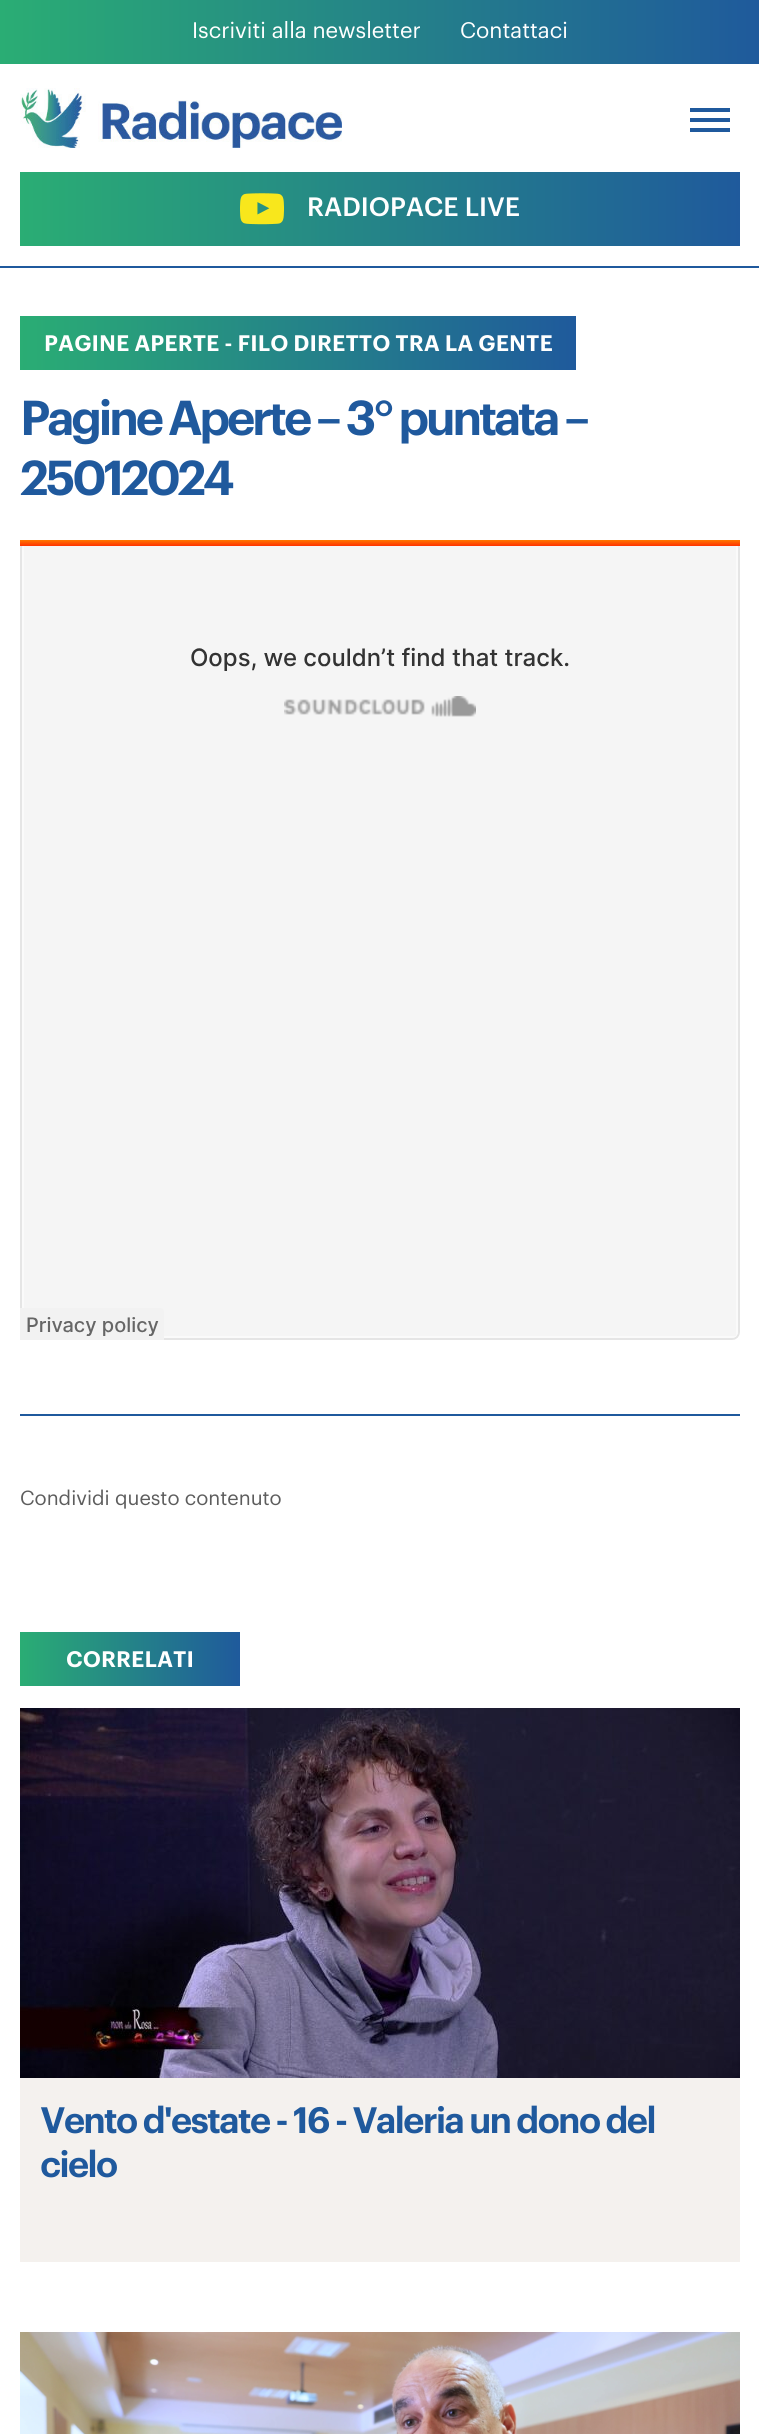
import math
import cairo



def draw_spaced(context, x, y, s, letter, word):
    context.move_to(x, y)
    for ch in s:
        context.show_text(ch)
        context.rel_move_to(letter + word * (ch == ' '), 0)


def draw_image(context, path, x, y, w, h):
    context.save()
    context.set_source_surface(cairo.ImageSurface.create_from_png(path), x, y)
    context.rectangle(x, y, w, h)
    context.fill()
    context.restore()


def draw(context):
    context.set_source_rgb(1, 1, 1)
    context.paint()
    gradient = cairo.LinearGradient(0, 32, 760, 32)
    gradient.add_color_stop_rgba(0, 42 / 255, 173 / 255, 116 / 255, 1)
    gradient.add_color_stop_rgba(1, 31 / 255, 90 / 255, 156 / 255, 1)
    context.set_source(gradient)
    context.rectangle(0, 0, 759, 64)
    context.fill()
    context.set_source_rgb(31 / 255, 89 / 255, 157 / 255)
    context.rectangle(0, 266, 759, 2)
    context.fill()
    draw_image(context, "images/1.png", 20, 88, 322, 60)
    context.rectangle(690, 108, 40, 4)
    context.fill()
    context.rectangle(690, 118, 40, 4)
    context.fill()
    context.rectangle(690, 128, 40, 4)
    context.fill()
    gradient = cairo.LinearGradient(20, 209, 740, 209)
    gradient.add_color_stop_rgba(0, 42 / 255, 173 / 255, 116 / 255, 1)
    gradient.add_color_stop_rgba(1, 31 / 255, 90 / 255, 156 / 255, 1)
    context.set_source(gradient)
    context.rectangle(20, 172, 720, 74)
    context.fill()
    draw_image(context, "images/2.png", 240, 193, 44, 32)
    context.set_source_rgb(31 / 255, 89 / 255, 157 / 255)
    context.rectangle(20, 1414, 720, 2)
    context.fill()
    gradient = cairo.LinearGradient(20, 343, 576, 343)
    gradient.add_color_stop_rgba(0, 42 / 255, 173 / 255, 116 / 255, 1)
    gradient.add_color_stop_rgba(1, 31 / 255, 90 / 255, 156 / 255, 1)
    context.set_source(gradient)
    context.rectangle(20, 316, 556, 54)
    context.fill()
    draw_image(context, "images/3.png", 20, 540, 720, 800)
    gradient = cairo.LinearGradient(20, 1659, 240, 1659)
    gradient.add_color_stop_rgba(0, 42 / 255, 173 / 255, 116 / 255, 1)
    gradient.add_color_stop_rgba(1, 31 / 255, 90 / 255, 156 / 255, 1)
    context.set_source(gradient)
    context.rectangle(20, 1632, 220, 54)
    context.fill()
    draw_image(context, "images/4.png", 20, 1708, 720, 370)
    context.set_source_rgb(244 / 255, 241 / 255, 238 / 255)
    context.rectangle(20, 2078, 720, 184)
    context.fill()
    draw_image(context, "images/5.png", 20, 2332, 720, 102)
    context.select_font_face("Graphik")
    context.set_font_size(22)
    context.set_source_rgb(1, 1, 1)
    context.move_to(192, 38)
    context.show_text("Iscriviti alla newsletter")
    context.move_to(460, 38)
    context.show_text("Contattaci")
    context.select_font_face("Graphik Medium")
    context.set_font_size(26)
    context.move_to(307, 216)
    context.show_text("RADIOPACE LIVE")
    context.select_font_face("Graphik SemiBold")
    context.set_font_size(22)
    context.move_to(44, 351)
    context.show_text("PAGINE APERTE - FILO DIRETTO TRA LA GENTE")
    context.set_font_size(48)
    context.set_source_rgb(31 / 255, 89 / 255, 157 / 255)
    draw_spaced(context, 20, 435, "Pagine Aperte – 3° puntata –", -3.6, 0)
    draw_spaced(context, 20, 495, "25012024", -3.6, 0)
    context.select_font_face("Graphik")
    context.set_font_size(20)
    context.set_source_rgb(93 / 255, 93 / 255, 93 / 255)
    context.move_to(20, 1505)
    context.show_text("Condividi questo contenuto")
    context.select_font_face("Graphik SemiBold")
    context.set_font_size(22)
    context.set_source_rgb(1, 1, 1)
    context.move_to(66, 1667)
    context.show_text("CORRELATI")
    context.set_font_size(36)
    context.set_source_rgb(31 / 255, 89 / 255, 157 / 255)
    draw_spaced(context, 40, 2133, "Vento d'estate - 16 - Valeria un dono del", -2, 0)
    draw_spaced(context, 40, 2177, "cielo", -2, 0)


surface = cairo.ImageSurface(cairo.Format.RGB24, 759, 2434)
context = cairo.Context(surface)
options = cairo.FontOptions()
options.set_hint_metrics(cairo.HintMetrics.OFF)
options.set_hint_style(cairo.HintStyle.NONE)
context.set_font_options(options)
context.set_miter_limit(4)
draw(context)
surface.write_to_png("out.png")
